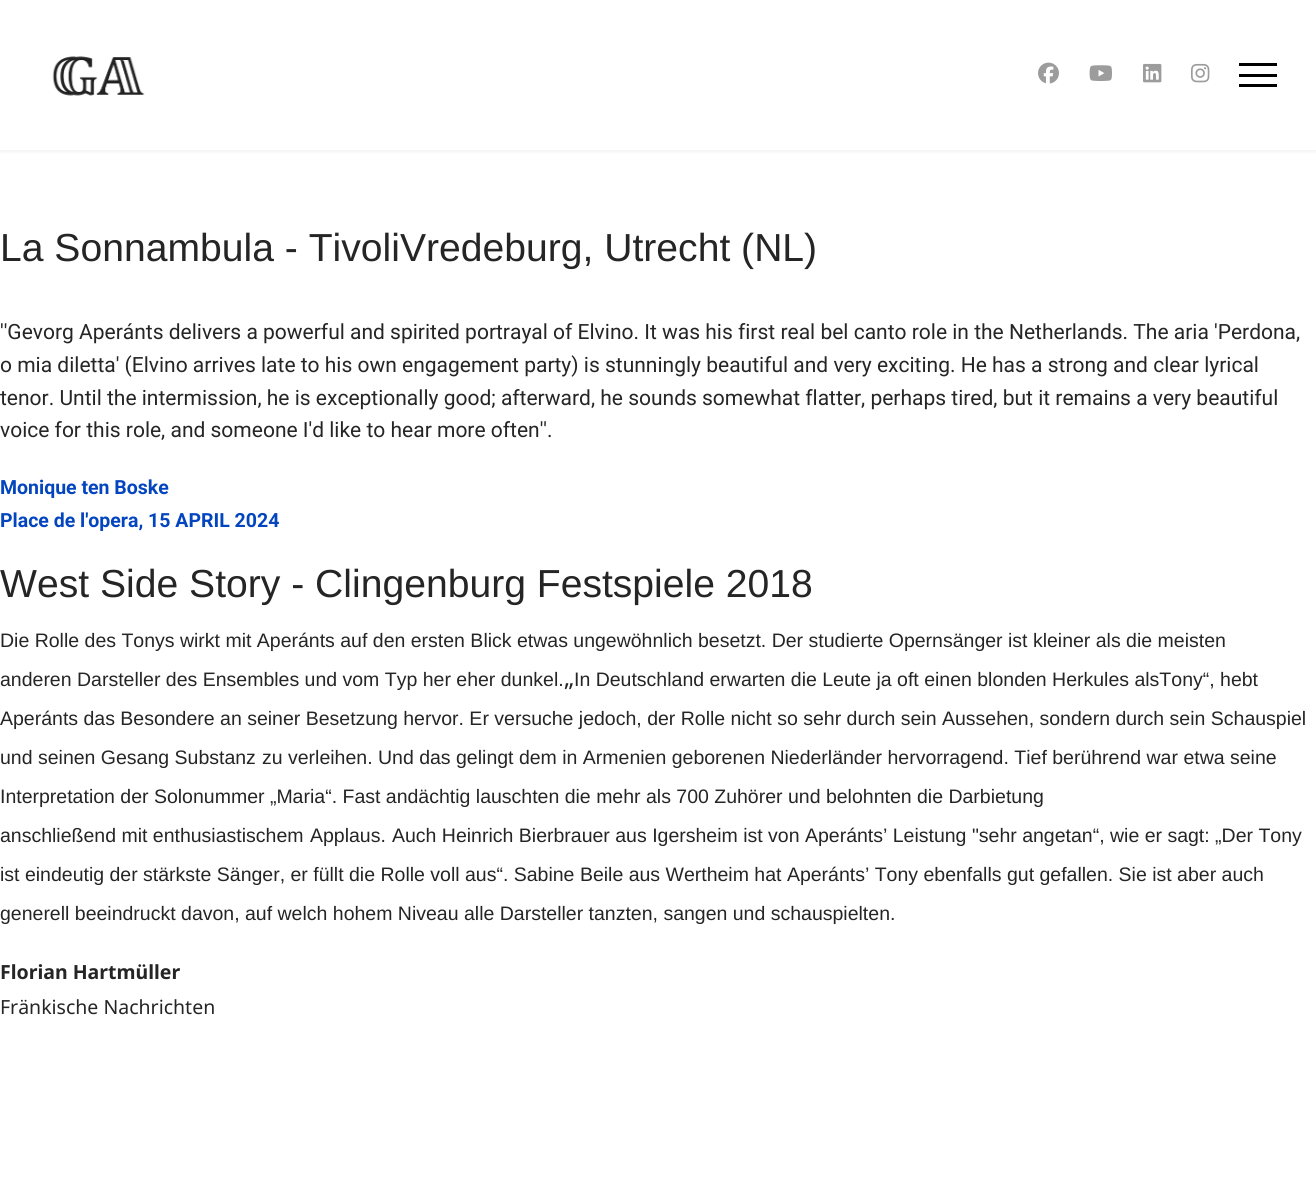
import math
import cairo



def rounded_rect(context, x, y, w, h, r):
    context.new_sub_path()
    for i, (u, v) in enumerate([(x + w - r, y + h - r), (x + r, y + h - r), (x + r, y + r), (x + w - r, y + r)]):
        context.arc(u, v, r, i * math.pi / 2, (i + 1) * math.pi / 2)
    context.close_path()


def draw_shadow(context, x, y, w, h, r, blur, alpha):
    context.push_group_with_content(cairo.Content.ALPHA)
    context.set_operator(cairo.Operator.SOURCE)
    for i in range(15, -16, -2):
        e = blur * i / 6
        if min(w, h) + 2 * e > 0:
            context.set_source_rgba(0, 0, 0, alpha * math.erfc((i - 1) / 8.5) / 2)
            rounded_rect(context, x - e, y - e, w + 2 * e, h + 2 * e, max(0, min(r + e + blur * .6, min(w, h) / 2 + e)))
            context.fill()
    context.mask(context.pop_group())


def draw_image(context, path, x, y, w, h):
    context.save()
    context.set_source_surface(cairo.ImageSurface.create_from_png(path), x, y)
    context.rectangle(x, y, w, h)
    context.fill()
    context.restore()


def draw(context):
    context.set_source_rgb(1, 1, 1)
    context.paint()
    context.save()
    context.rectangle(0, 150, 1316, 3)
    context.clip()
    context.set_source_rgb(0, 0, 0)
    draw_shadow(context, 0, 0, 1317, 150, 0, 3, 0.1)
    context.restore()
    draw_image(context, "images/1.png", 52, 56, 93, 40)
    draw_image(context, "images/2.png", 1038, 62, 21, 22)
    draw_image(context, "images/3.png", 1089, 65, 23, 16)
    draw_image(context, "images/4.png", 1143, 63, 19, 20)
    draw_image(context, "images/5.png", 1191, 63, 19, 20)
    context.set_source_rgb(0, 0, 0)
    context.rectangle(1239, 63, 38, 3)
    context.fill()
    context.rectangle(1239, 74, 38, 3)
    context.fill()
    context.rectangle(1239, 84, 38, 3)
    context.fill()
    context.select_font_face("Liberation Sans")
    context.set_font_size(39.1)
    context.set_source_rgb(37 / 255, 37 / 255, 37 / 255)
    context.move_to(0, 261)
    context.show_text("La Sonnambula - TivoliVredeburg, Utrecht (NL)")
    context.select_font_face("Roboto")
    context.set_font_size(21)
    context.move_to(0, 339)
    context.show_text("''Gevorg Aperánts delivers a powerful and spirited portrayal of Elvino. It was his first real bel canto role in the Netherlands. The aria 'Perdona,")
    context.move_to(0, 372)
    context.show_text("o mia diletta' (Elvino arrives late to his own engagement party) is stunningly beautiful and very exciting. He has a strong and clear lyrical")
    context.move_to(0, 405)
    context.show_text("tenor. Until the intermission, he is exceptionally good; afterward, he sounds somewhat flatter, perhaps tired, but it remains a very beautiful")
    context.move_to(0, 437)
    context.show_text("voice for this role, and someone I'd like to hear more often''.")
    context.select_font_face("Roboto", cairo.FontSlant.NORMAL, cairo.FontWeight.BOLD)
    context.set_font_size(19.5)
    context.set_source_rgb(3 / 255, 69 / 255, 191 / 255)
    context.move_to(0, 494)
    context.show_text("Monique ten Boske")
    context.move_to(0, 527)
    context.show_text("Place de l'opera, 15 APRIL 2024")
    context.select_font_face("Liberation Sans")
    context.set_font_size(39.1)
    context.set_source_rgb(37 / 255, 37 / 255, 37 / 255)
    context.move_to(0, 597)
    context.show_text("West Side Story - Clingenburg Festspiele 2018")
    context.set_font_size(19.5)
    context.move_to(0, 647)
    context.show_text("Die Rolle des Tonys wirkt mit Aperánts auf den ersten Blick etwas ungewöhnlich besetzt. Der studierte Opernsänger ist kleiner als die meisten")
    context.move_to(0, 686)
    context.show_text("anderen Darsteller des Ensembles und vom Typ her eher dunkel.")
    context.select_font_face("Noto Sans")
    context.set_font_size(24)
    context.move_to(564, 686)
    context.show_text("„")
    context.select_font_face("Liberation Sans")
    context.set_font_size(19.5)
    context.move_to(574, 686)
    context.show_text("In Deutschland erwarten die Leute ja oft einen blonden Herkules alsTony“, hebt")
    context.move_to(0, 725)
    context.show_text("Aperánts das Besondere an seiner Besetzung hervor. Er versuche jedoch, der Rolle nicht so sehr durch sein Aussehen, sondern durch sein Schauspiel")
    context.move_to(0, 764)
    context.show_text("und seinen Gesang Substanz")
    context.move_to(262, 764)
    context.show_text("zu verleihen. Und das gelingt dem in Armenien geborenen Niederländer hervorragend. Tief berührend war etwa seine")
    context.move_to(0, 803)
    context.show_text("Interpretation der Solonummer „Maria“. Fast andächtig lauschten die mehr als 700 Zuhörer und belohnten die Darbietung")
    context.move_to(0, 842)
    context.show_text("anschließend mit enthusiastischem")
    context.move_to(310, 842)
    context.show_text("Applaus.")
    context.move_to(392, 842)
    context.show_text("Auch Heinrich Bierbrauer aus Igersheim ist von Aperánts’ Leistung \"sehr angetan“, wie er sagt: „Der Tony")
    context.move_to(0, 881)
    context.show_text("ist eindeutig der stärkste Sänger, er füllt die Rolle voll aus“. Sabine Beile aus Wertheim hat Aperánts’ Tony ebenfalls gut gefallen. Sie ist aber auch")
    context.move_to(0, 920)
    context.show_text("generell beeindruckt davon, auf welch hohem Niveau alle Darsteller tanzten, sangen und schauspielten.")
    context.select_font_face("Noto Sans", cairo.FontSlant.NORMAL, cairo.FontWeight.BOLD)
    context.move_to(0, 979)
    context.show_text("Florian Hartmüller")
    context.select_font_face("Noto Sans")
    context.move_to(0, 1014)
    context.show_text("Fränkische Nachrichten")


surface = cairo.ImageSurface(cairo.Format.RGB24, 1316, 1185)
context = cairo.Context(surface)
options = cairo.FontOptions()
options.set_hint_metrics(cairo.HintMetrics.OFF)
options.set_hint_style(cairo.HintStyle.NONE)
context.set_font_options(options)
context.set_miter_limit(4)
draw(context)
surface.write_to_png("out.png")
